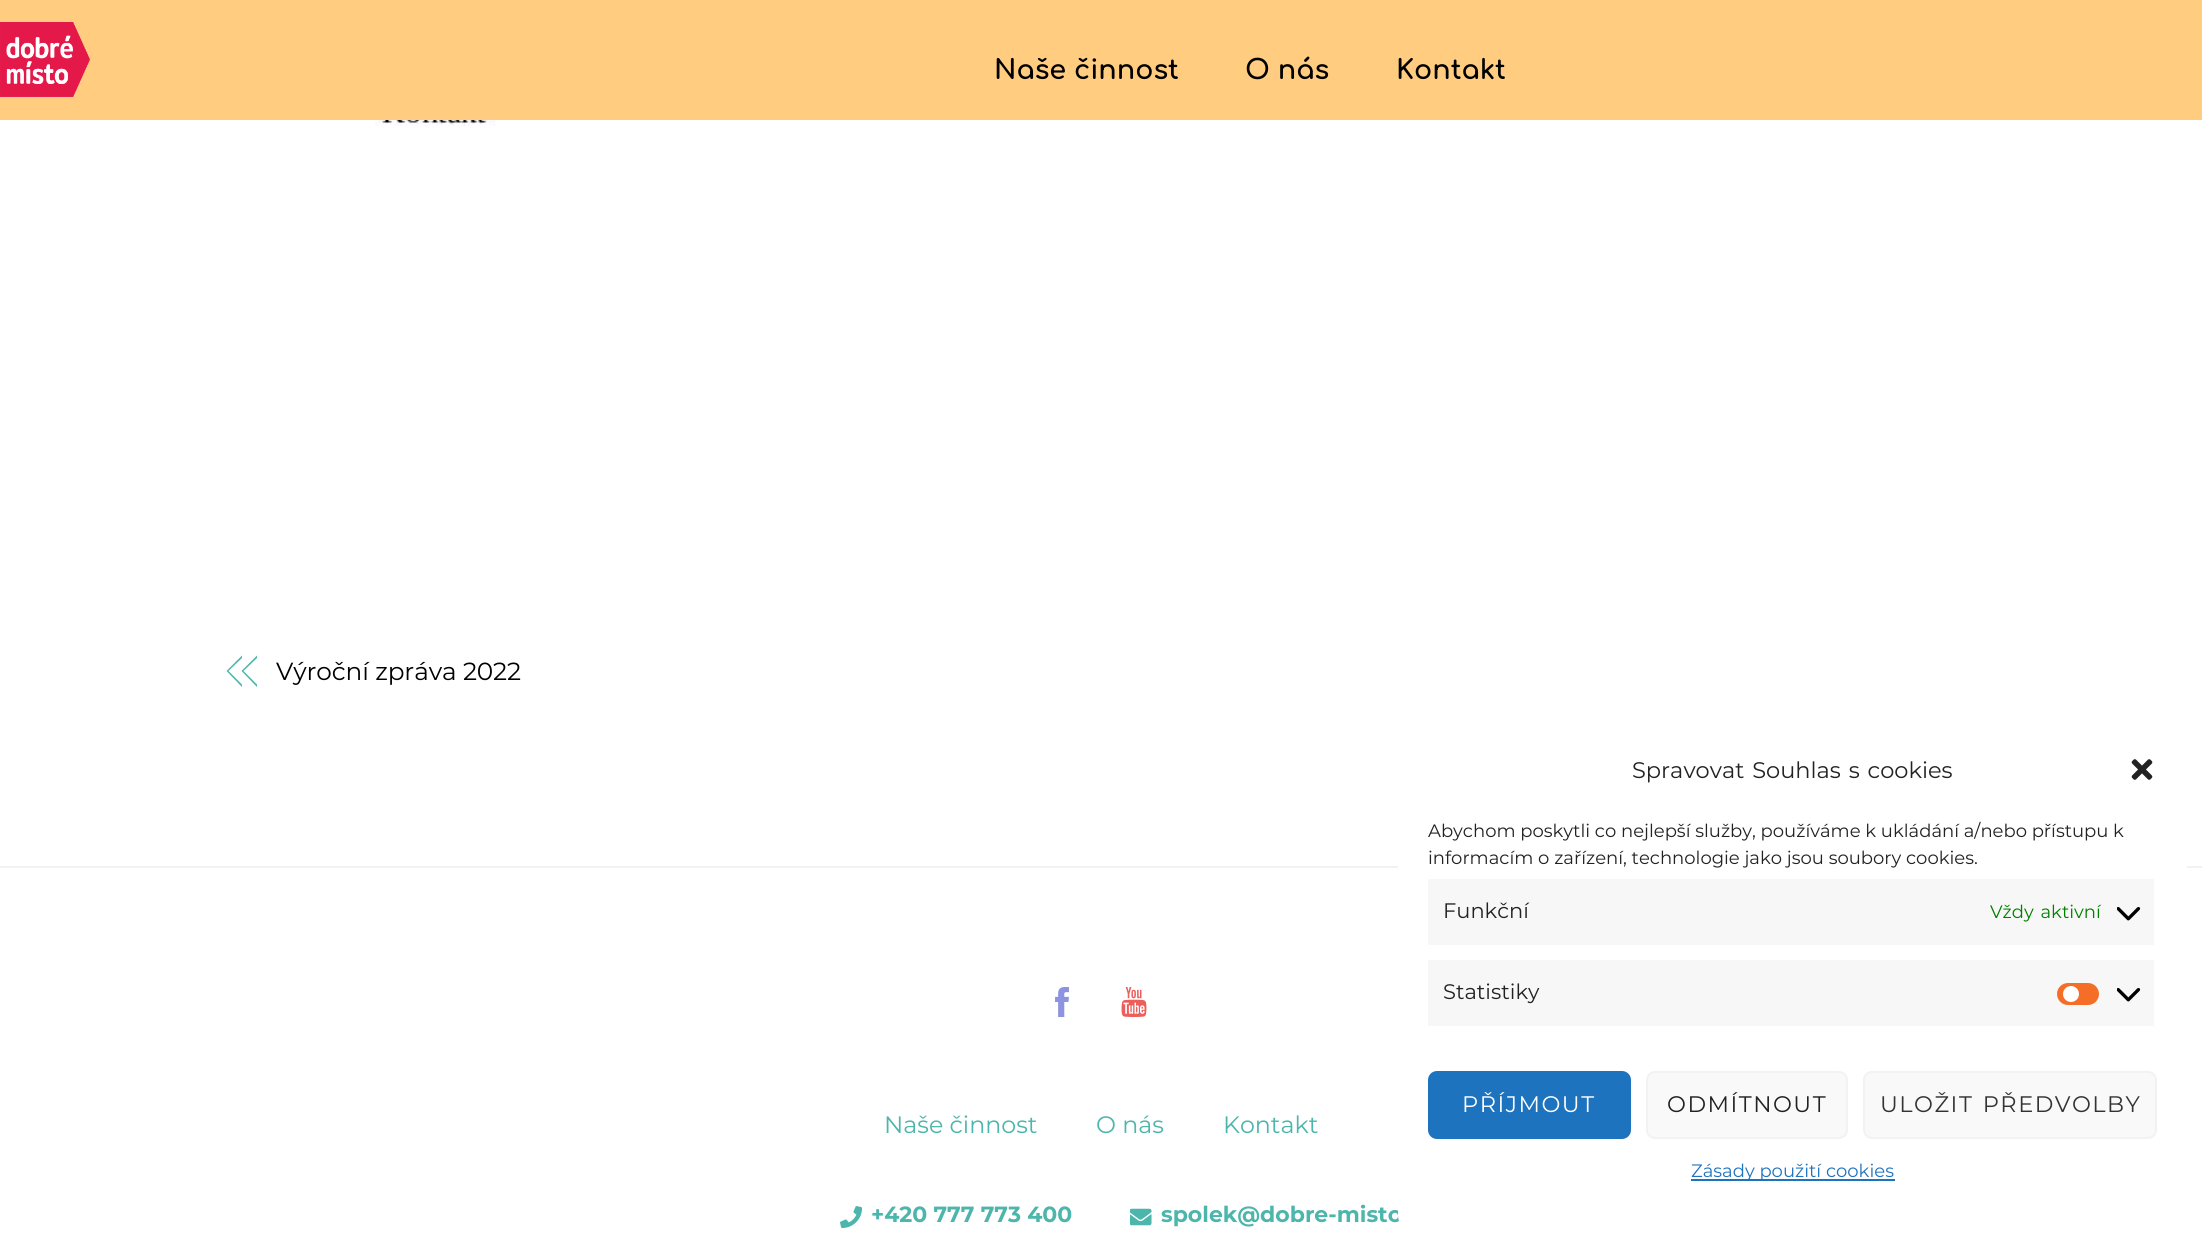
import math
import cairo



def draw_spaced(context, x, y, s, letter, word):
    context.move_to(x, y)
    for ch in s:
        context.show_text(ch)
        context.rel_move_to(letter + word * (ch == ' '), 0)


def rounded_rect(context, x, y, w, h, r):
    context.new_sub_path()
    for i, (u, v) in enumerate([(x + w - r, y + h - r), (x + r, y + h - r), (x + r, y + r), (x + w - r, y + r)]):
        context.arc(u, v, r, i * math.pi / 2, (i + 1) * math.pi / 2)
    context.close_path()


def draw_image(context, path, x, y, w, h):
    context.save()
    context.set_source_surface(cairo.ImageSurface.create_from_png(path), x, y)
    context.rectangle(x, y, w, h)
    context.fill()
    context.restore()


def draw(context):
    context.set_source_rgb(1, 1, 1)
    context.paint()
    context.set_source_rgb(1, 204 / 255, 128 / 255)
    context.rectangle(0, 0, 2202, 120)
    context.fill()
    draw_image(context, "images/1.png", 0, 22, 90, 75)
    draw_image(context, "images/2.png", 375, 120, 300, 6)
    context.set_source_rgb(77 / 255, 182 / 255, 172 / 255)
    context.new_path()
    context.move_to(226.5, 671)
    context.line_to(242, 655.5)
    context.line_to(242, 658)
    context.line_to(228.5, 671)
    context.close_path()
    context.move_to(242, 687)
    context.line_to(226.5, 671)
    context.line_to(228.5, 671)
    context.line_to(242, 684.5)
    context.close_path()
    context.fill()
    context.new_path()
    context.move_to(241.5, 671)
    context.line_to(257, 655.5)
    context.line_to(257, 658)
    context.line_to(243.5, 671)
    context.close_path()
    context.move_to(257, 687)
    context.line_to(241.5, 671)
    context.line_to(243.5, 671)
    context.line_to(257, 684.5)
    context.close_path()
    context.fill()
    context.set_source_rgb(242 / 255, 242 / 255, 242 / 255)
    context.rectangle(0, 866, 2202, 2)
    context.fill()
    draw_image(context, "images/3.png", 1055, 987, 14, 30)
    draw_image(context, "images/4.png", 1121, 987, 26, 30)
    draw_image(context, "images/5.png", 840, 1206, 22, 22)
    draw_image(context, "images/6.png", 1130, 1208, 22, 18)
    context.select_font_face("Comfortaa", cairo.FontSlant.NORMAL, cairo.FontWeight.BOLD)
    context.set_font_size(27)
    context.set_source_rgb(0, 0, 0)
    context.move_to(994, 79)
    context.show_text("Naše činnost")
    context.move_to(1245, 79)
    context.show_text("O nás")
    context.move_to(1396, 79)
    context.show_text("Kontakt")
    context.select_font_face("Montserrat")
    context.set_font_size(24.75)
    draw_spaced(context, 276, 680, "Výroční zpráva 2022", -0.1, 0)
    context.set_font_size(23.75)
    context.set_source_rgb(77 / 255, 182 / 255, 172 / 255)
    context.move_to(884, 1133)
    context.show_text("Naše činnost")
    context.move_to(1096, 1133)
    context.show_text("O nás")
    context.move_to(1223, 1133)
    context.show_text("Kontakt")
    context.select_font_face("Montserrat", cairo.FontSlant.NORMAL, cairo.FontWeight.BOLD)
    context.set_font_size(22)
    context.move_to(871, 1222)
    context.show_text("+420 777 773 400")
    context.move_to(1161, 1222)
    context.show_text("spolek@dobre-misto")
    context.set_source_rgb(1, 1, 1)
    rounded_rect(context, 1398, 731, 789, 502, 18)
    context.fill()
    context.select_font_face("Montserrat")
    context.set_font_size(22.5)
    context.set_source_rgb(34 / 255, 34 / 255, 34 / 255)
    draw_spaced(context, 1632, 778, "Spravovat Souhlas s cookies", 0, 2)
    draw_image(context, "images/7.png", 2131, 759, 22, 21)
    context.set_font_size(18)
    context.move_to(1428, 837)
    context.show_text("Abychom poskytli co nejlepší služby, používáme k ukládání a/nebo přístupu k")
    context.move_to(1428, 864)
    context.show_text("informacím o zařízení, technologie jako jsou soubory cookies.")
    context.set_source_rgb(247 / 255, 247 / 255, 247 / 255)
    context.rectangle(1428, 879, 726, 66)
    context.fill()
    context.set_font_size(21)
    context.set_source_rgb(34 / 255, 34 / 255, 34 / 255)
    context.move_to(1443, 918)
    context.show_text("Funkční")
    context.set_font_size(18)
    context.set_source_rgb(0, 128 / 255, 0)
    draw_spaced(context, 1990, 918, "Vždy aktivní", 0, 2)
    draw_image(context, "images/8.png", 2117, 907, 24, 14)
    context.set_source_rgb(247 / 255, 247 / 255, 247 / 255)
    context.rectangle(1428, 960, 726, 66)
    context.fill()
    context.set_font_size(21)
    context.set_source_rgb(34 / 255, 34 / 255, 34 / 255)
    context.move_to(1443, 999)
    context.show_text("Statistiky")
    context.set_source_rgb(245 / 255, 110 / 255, 40 / 255)
    rounded_rect(context, 2057, 983, 42, 22, 11)
    context.fill()
    context.set_source_rgb(1, 1, 1)
    context.arc(2071, 994, 8, 0, 2 * math.pi)
    context.fill()
    draw_image(context, "images/8.png", 2117, 988, 24, 14)
    context.set_source_rgb(30 / 255, 115 / 255, 190 / 255)
    rounded_rect(context, 1429, 1072, 201, 66, 8)
    context.fill_preserve()
    context.stroke()
    context.set_font_size(22.5)
    context.set_source_rgb(1, 1, 1)
    draw_spaced(context, 1462, 1112, "PŘÍJMOUT", 1.5, 0)
    context.set_source_rgb(249 / 255, 249 / 255, 249 / 255)
    rounded_rect(context, 1647, 1072, 200, 66, 8)
    context.fill_preserve()
    context.set_source_rgb(242 / 255, 242 / 255, 242 / 255)
    context.stroke()
    context.set_source_rgb(34 / 255, 34 / 255, 34 / 255)
    draw_spaced(context, 1667, 1112, "ODMÍTNOUT", 1.5, 0)
    context.set_source_rgb(249 / 255, 249 / 255, 249 / 255)
    rounded_rect(context, 1864, 1072, 292, 66, 8)
    context.fill_preserve()
    context.set_source_rgb(242 / 255, 242 / 255, 242 / 255)
    context.stroke()
    context.set_source_rgb(51 / 255, 51 / 255, 51 / 255)
    draw_spaced(context, 1880, 1112, "ULOŽIT PŘEDVOLBY", 1.5, 2)
    context.set_source_rgb(30 / 255, 115 / 255, 190 / 255)
    context.rectangle(1691, 1179, 204, 2)
    context.fill()
    context.set_font_size(18)
    context.move_to(1691, 1177)
    context.show_text("Zásady použití cookies")


surface = cairo.ImageSurface(cairo.Format.RGB24, 2202, 1248)
context = cairo.Context(surface)
options = cairo.FontOptions()
options.set_hint_metrics(cairo.HintMetrics.OFF)
options.set_hint_style(cairo.HintStyle.NONE)
context.set_font_options(options)
context.set_miter_limit(4)
draw(context)
surface.write_to_png("out.png")
